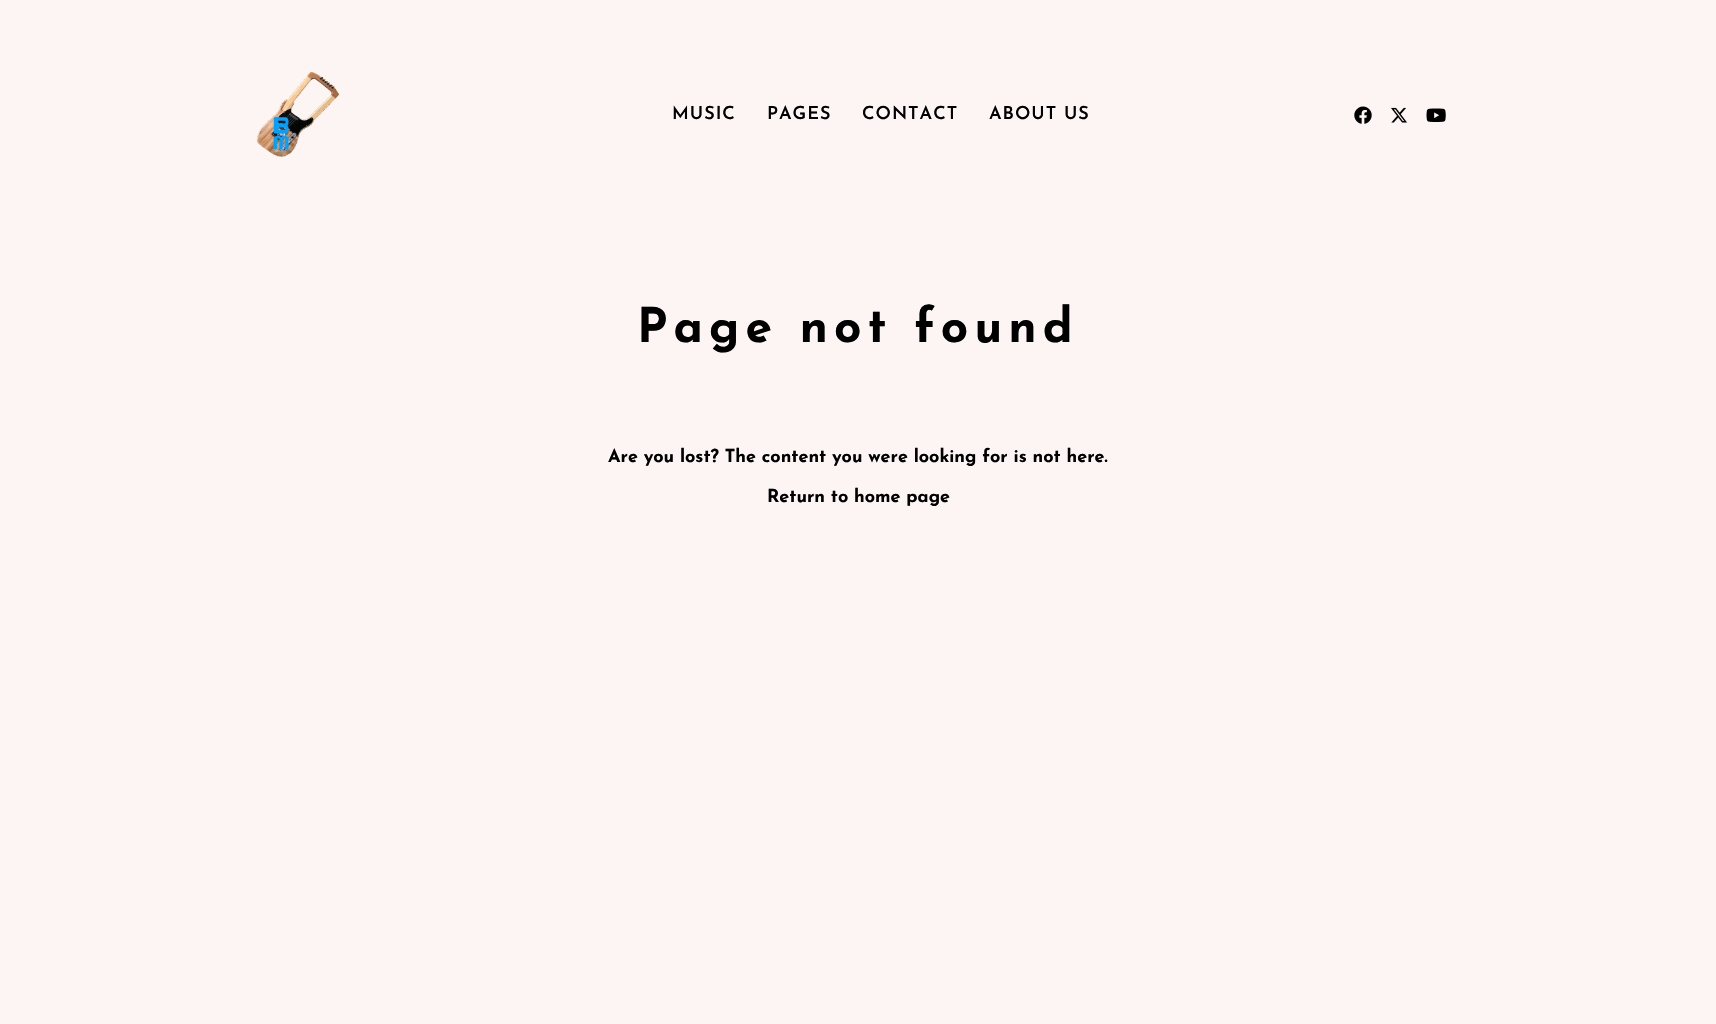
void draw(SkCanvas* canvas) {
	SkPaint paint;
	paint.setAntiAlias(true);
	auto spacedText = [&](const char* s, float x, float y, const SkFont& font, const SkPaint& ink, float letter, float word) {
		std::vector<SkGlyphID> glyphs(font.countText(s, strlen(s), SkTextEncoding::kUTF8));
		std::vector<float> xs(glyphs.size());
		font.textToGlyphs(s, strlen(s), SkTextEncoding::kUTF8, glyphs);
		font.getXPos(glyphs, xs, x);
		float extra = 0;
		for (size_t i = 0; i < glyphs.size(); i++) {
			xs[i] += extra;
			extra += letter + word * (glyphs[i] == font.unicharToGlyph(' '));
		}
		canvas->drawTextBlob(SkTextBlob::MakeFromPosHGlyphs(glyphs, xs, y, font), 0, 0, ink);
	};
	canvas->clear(0xfffdf4f4);
	canvas->drawImageRect(SkImages::DeferredFromEncodedData(SkData::MakeFromFileName("img1.png")), SkRect::MakeXYWH(256, 71, 84, 86), SkSamplingOptions());
	SkFont f1(fontMgr->matchFamilyStyle("Josefin Sans", SkFontStyle(600, SkFontStyle::kNormal_Width, SkFontStyle::kUpright_Slant)), 18);
	f1.setSubpixel(true);
	paint.setColor(0xff000000);
	spacedText("MUSIC", 672, 119, f1, paint, 1, 0);
	spacedText("PAGES", 767, 119, f1, paint, 1, 0);
	spacedText("CONTACT", 862, 119, f1, paint, 1, 0);
	spacedText("ABOUT US", 989, 119, f1, paint, 1, 0);
	canvas->drawImageRect(SkImages::DeferredFromEncodedData(SkData::MakeFromFileName("img2.png")), SkRect::MakeXYWH(1354, 106, 18, 18), SkSamplingOptions());
	canvas->drawImageRect(SkImages::DeferredFromEncodedData(SkData::MakeFromFileName("img3.png")), SkRect::MakeXYWH(1391, 107, 16, 16), SkSamplingOptions());
	canvas->drawImageRect(SkImages::DeferredFromEncodedData(SkData::MakeFromFileName("img4.png")), SkRect::MakeXYWH(1426, 108, 20, 14), SkSamplingOptions());
	SkFont f2(fontMgr->matchFamilyStyle("Josefin Sans", SkFontStyle::Bold()), 48);
	f2.setSubpixel(true);
	spacedText("Page not found", 637, 342, f2, paint, 6, 0);
	SkFont f3(fontMgr->matchFamilyStyle("Josefin Sans", SkFontStyle::Bold()), 18);
	f3.setSubpixel(true);
	canvas->drawString("Are you lost? The content you were looking for is not here.", 608, 462, f3, paint);
	canvas->drawString("Return to home page", 767, 502, f3, paint);
}
